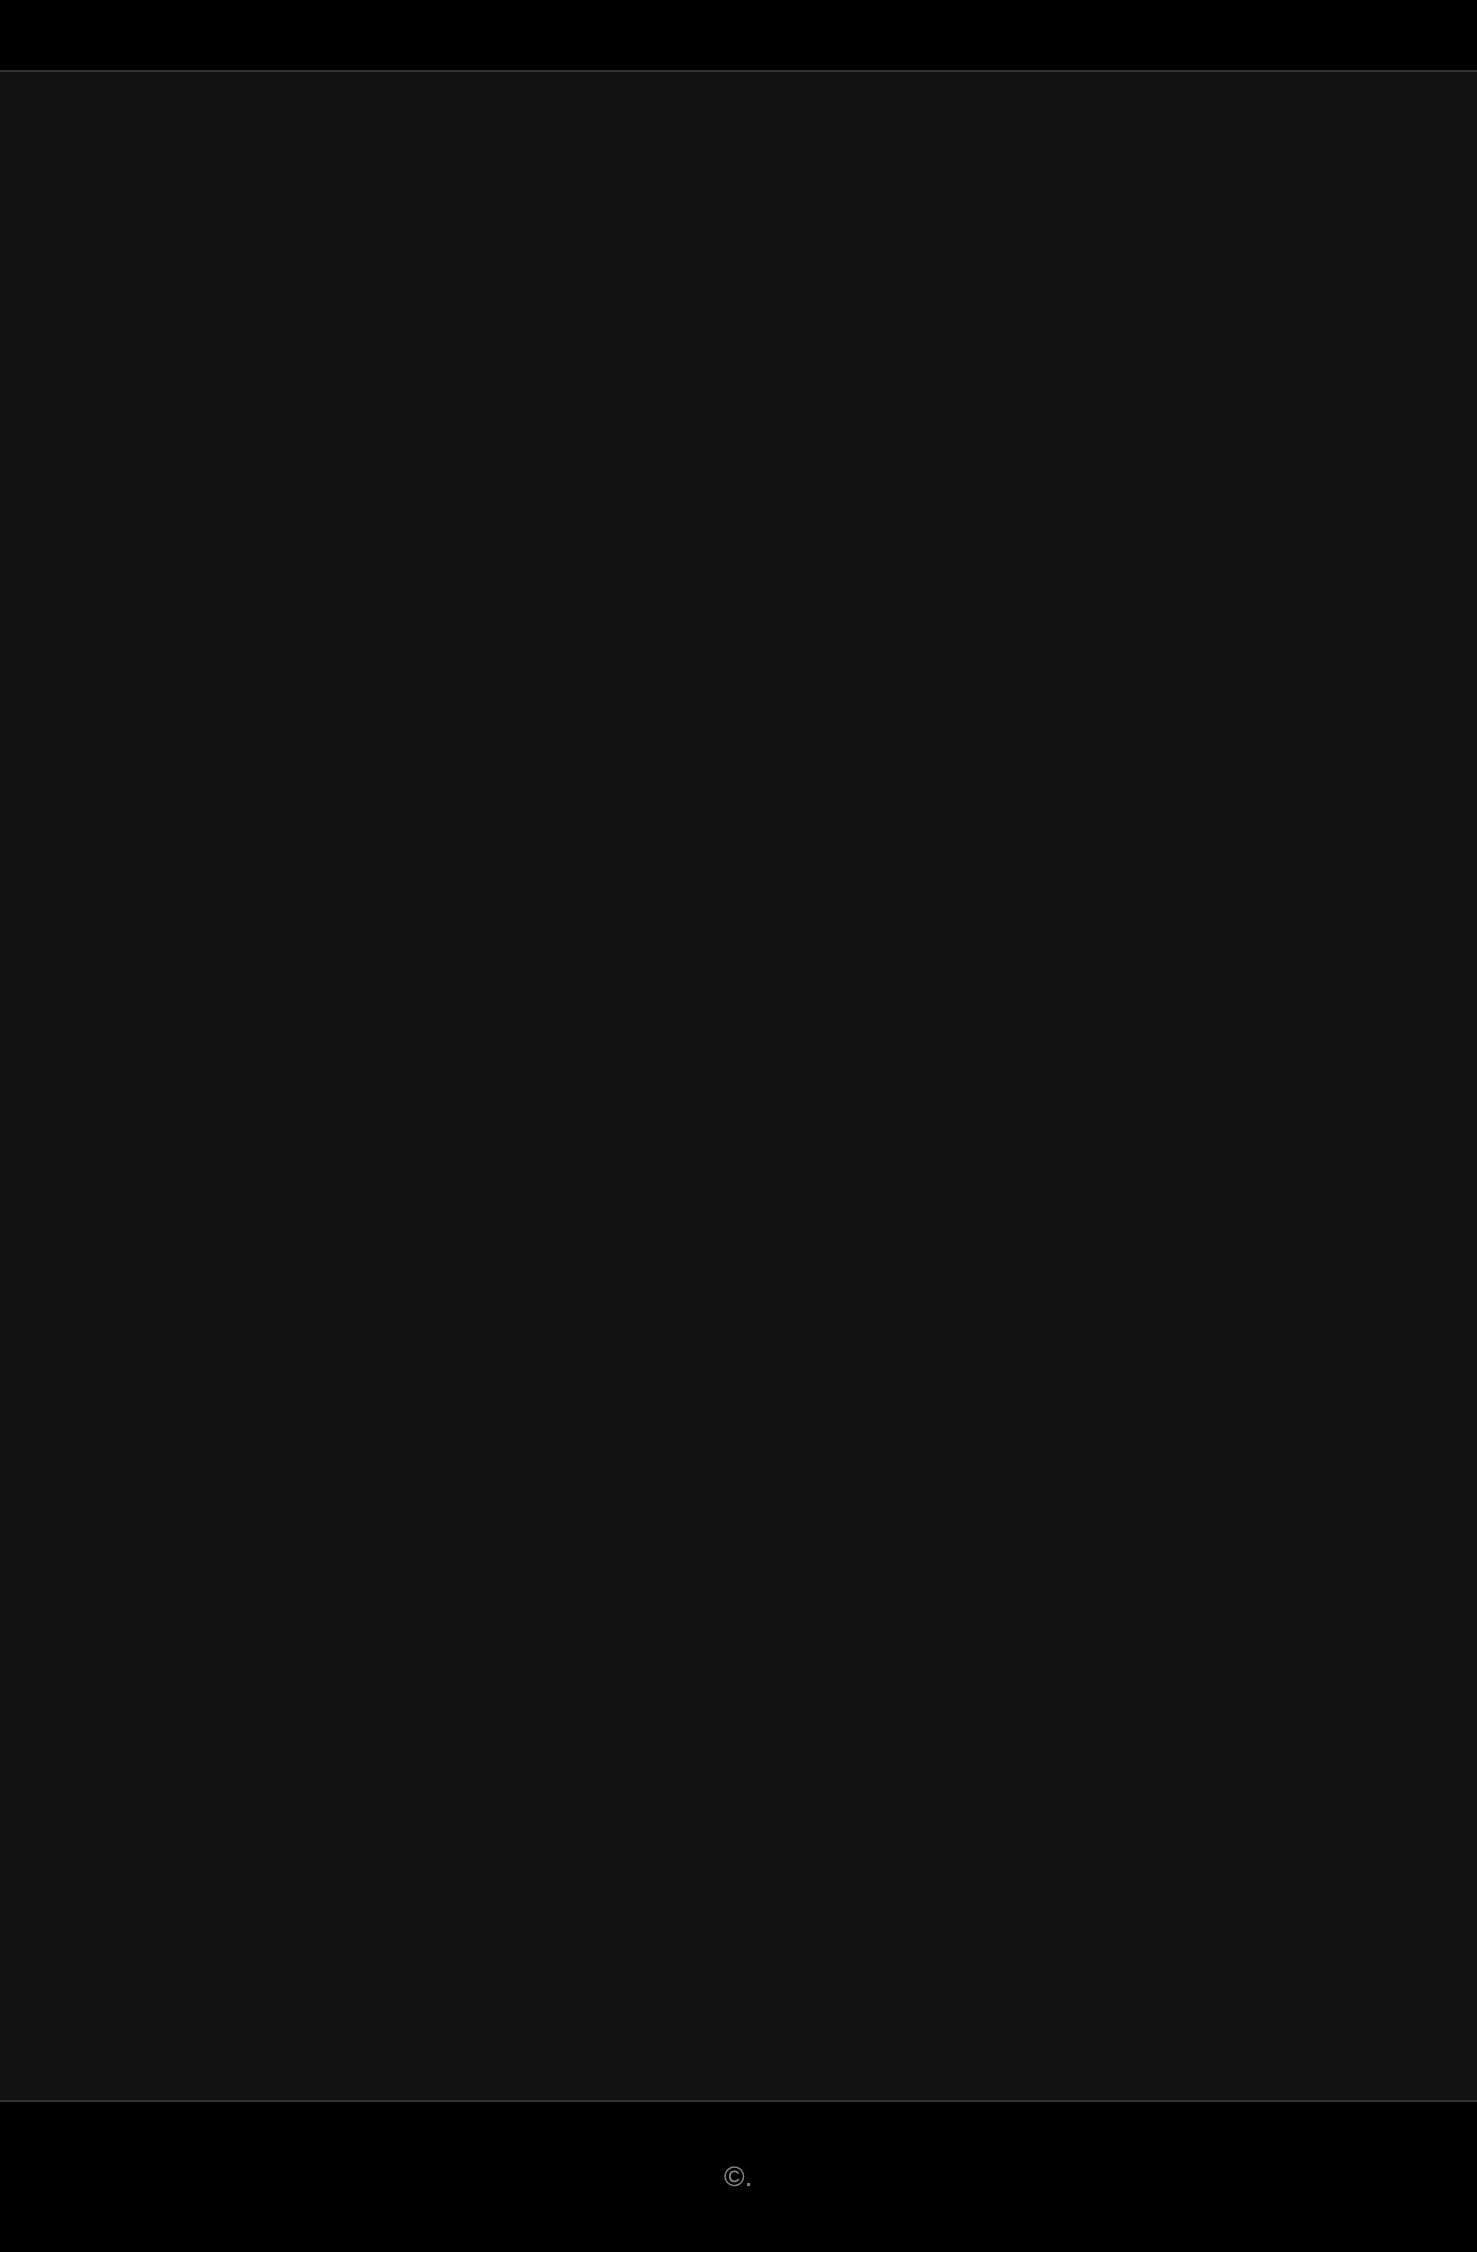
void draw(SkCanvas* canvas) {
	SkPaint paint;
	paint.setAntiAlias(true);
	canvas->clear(0xff121212);
	paint.setColor(0xff000000);
	canvas->drawRect(SkRect::MakeXYWH(0, 0, 1477, 70), paint);
	paint.setColor(0xff333333);
	canvas->drawRect(SkRect::MakeXYWH(0, 70, 1477, 2), paint);
	paint.setColor(0xff000000);
	canvas->drawRect(SkRect::MakeXYWH(0, 2102, 1477, 150), paint);
	paint.setColor(0xff333333);
	canvas->drawRect(SkRect::MakeXYWH(0, 2100, 1477, 2), paint);
	SkFont f1(fontMgr->matchFamilyStyle("Liberation Sans", SkFontStyle::Normal()), 28);
	f1.setSubpixel(true);
	paint.setColor(0xff888888);
	canvas->drawString("©.", 724, 2186, f1, paint);
}
